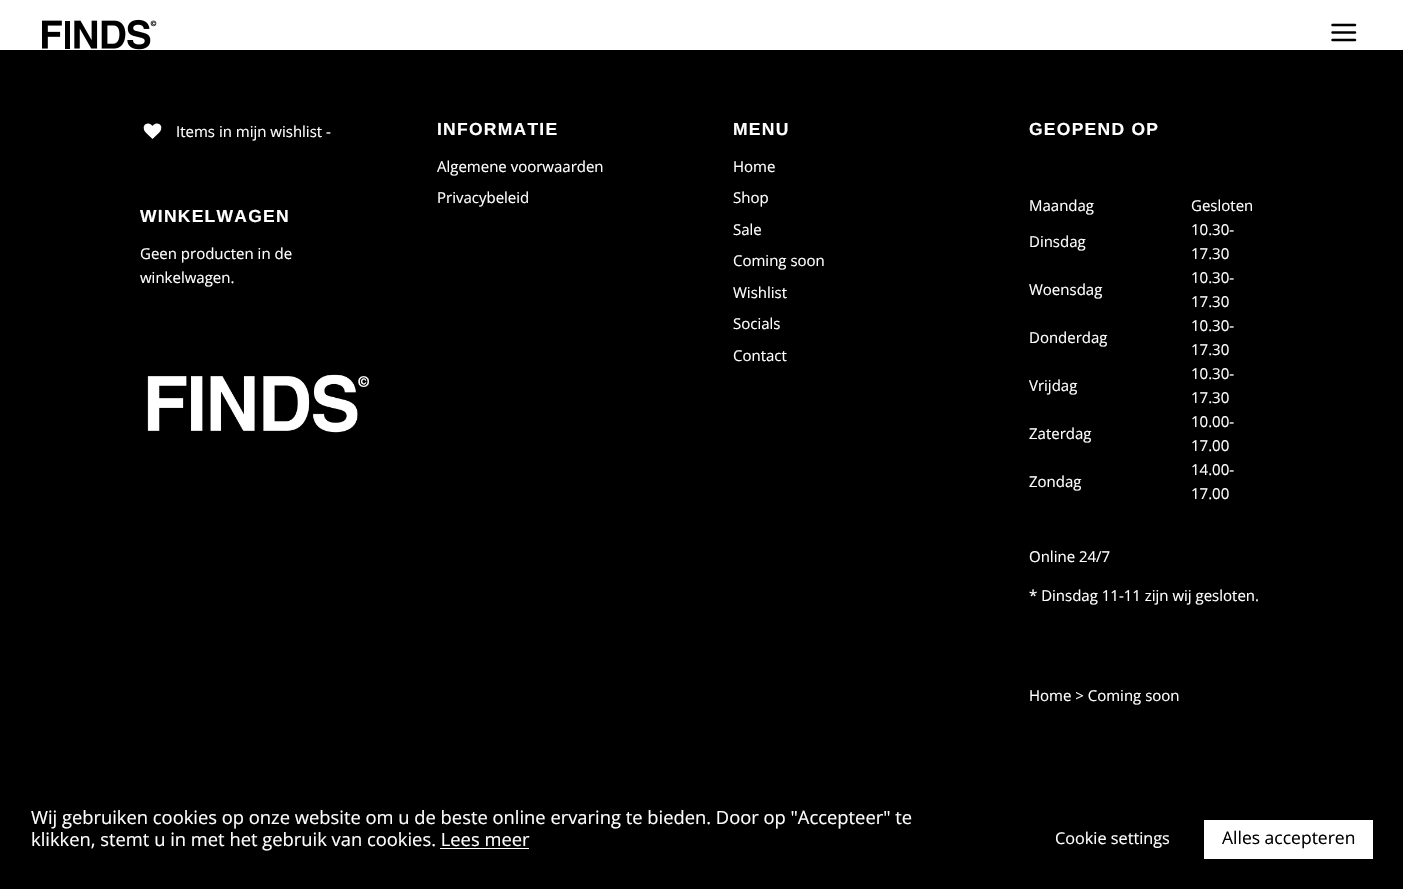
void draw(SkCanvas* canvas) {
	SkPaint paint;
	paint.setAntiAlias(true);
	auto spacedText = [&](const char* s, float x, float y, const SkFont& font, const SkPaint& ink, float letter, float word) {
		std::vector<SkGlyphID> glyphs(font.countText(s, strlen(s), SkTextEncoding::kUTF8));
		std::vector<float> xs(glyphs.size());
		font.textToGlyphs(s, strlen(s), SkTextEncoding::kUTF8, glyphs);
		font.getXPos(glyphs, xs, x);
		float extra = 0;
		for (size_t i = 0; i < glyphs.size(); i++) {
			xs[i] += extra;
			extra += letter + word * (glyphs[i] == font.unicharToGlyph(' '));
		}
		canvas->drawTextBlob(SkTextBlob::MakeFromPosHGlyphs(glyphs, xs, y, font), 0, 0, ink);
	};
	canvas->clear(0xffffffff);
	canvas->drawImageRect(SkImages::DeferredFromEncodedData(SkData::MakeFromFileName("img1.png")), SkRect::MakeXYWH(42, 19, 115, 31), SkSamplingOptions());
	canvas->drawImageRect(SkImages::DeferredFromEncodedData(SkData::MakeFromFileName("img2.png")), SkRect::MakeXYWH(1331, 23, 26, 19), SkSamplingOptions());
	paint.setColor(0xff000000);
	canvas->drawRect(SkRect::MakeXYWH(0, 50, 1403, 839), paint);
	canvas->drawImageRect(SkImages::DeferredFromEncodedData(SkData::MakeFromFileName("img3.png")), SkRect::MakeXYWH(143, 123, 19, 16), SkSamplingOptions());
	SkFont f1(fontMgr->matchFamilyStyle("Open Sans", SkFontStyle::Normal()), 15);
	f1.setSubpixel(true);
	paint.setColor(0xffffffff);
	canvas->drawString("Items in mijn wishlist -", 176, 137, f1, paint);
	SkFont f2(fontMgr->matchFamilyStyle("Liberation Sans", SkFontStyle::Bold()), 17.5);
	f2.setSubpixel(true);
	spacedText("WINKELWAGEN", 140, 222, f2, paint, 1.25, 0);
	canvas->drawString("Geen producten in de", 140, 259, f1, paint);
	canvas->drawString("winkelwagen.", 140, 283, f1, paint);
	canvas->drawImageRect(SkImages::DeferredFromEncodedData(SkData::MakeFromFileName("img4.png")), SkRect::MakeXYWH(147, 374, 222, 59), SkSamplingOptions());
	spacedText("INFORMATIE", 437, 135, f2, paint, 1.25, 0);
	canvas->drawString("Algemene voorwaarden", 437, 172, f1, paint);
	canvas->drawString("Privacybeleid", 437, 203, f1, paint);
	spacedText("MENU", 733, 135, f2, paint, 1.25, 0);
	canvas->drawString("Home", 733, 172, f1, paint);
	canvas->drawString("Shop", 733, 203, f1, paint);
	canvas->drawString("Sale", 733, 235, f1, paint);
	canvas->drawString("Coming soon", 733, 266, f1, paint);
	canvas->drawString("Wishlist", 733, 298, f1, paint);
	canvas->drawString("Socials", 733, 329, f1, paint);
	canvas->drawString("Contact", 733, 361, f1, paint);
	spacedText("GEOPEND OP", 1029, 135, f2, paint, 1.25, 0);
	canvas->drawString("Maandag", 1029, 211, f1, paint);
	canvas->drawString("Gesloten", 1191, 211, f1, paint);
	canvas->drawString("Dinsdag", 1029, 247, f1, paint);
	canvas->drawString("10.30-", 1191, 235, f1, paint);
	canvas->drawString("17.30", 1191, 259, f1, paint);
	canvas->drawString("Woensdag", 1029, 295, f1, paint);
	canvas->drawString("10.30-", 1191, 283, f1, paint);
	canvas->drawString("17.30", 1191, 307, f1, paint);
	canvas->drawString("Donderdag", 1029, 343, f1, paint);
	canvas->drawString("10.30-", 1191, 331, f1, paint);
	canvas->drawString("17.30", 1191, 355, f1, paint);
	canvas->drawString("Vrijdag", 1029, 391, f1, paint);
	canvas->drawString("10.30-", 1191, 379, f1, paint);
	canvas->drawString("17.30", 1191, 403, f1, paint);
	canvas->drawString("Zaterdag", 1029, 439, f1, paint);
	canvas->drawString("10.00-", 1191, 427, f1, paint);
	canvas->drawString("17.00", 1191, 451, f1, paint);
	canvas->drawString("Zondag", 1029, 487, f1, paint);
	canvas->drawString("14.00-", 1191, 475, f1, paint);
	canvas->drawString("17.00", 1191, 499, f1, paint);
	canvas->drawString("Online 24/7", 1029, 562, f1, paint);
	canvas->drawString("* Dinsdag 11-11 zijn wij gesloten.", 1029, 601, f1, paint);
	canvas->drawString("Home > Coming soon", 1029, 701, f1, paint);
	SkFont f3(fontMgr->matchFamilyStyle("Open Sans", SkFontStyle::Normal()), 18.35);
	f3.setSubpixel(true);
	canvas->drawString("Wij gebruiken cookies op onze website om u de beste online ervaring te bieden. Door op \"Accepteer\" te", 31, 824, f3, paint);
	canvas->drawString("klikken, stemt u in met het gebruik van cookies. Lees meer", 31, 846, f3, paint);
	canvas->drawRect(SkRect::MakeXYWH(440, 848, 89, 1), paint);
	SkFont f4(fontMgr->matchFamilyStyle("Open Sans", SkFontStyle::Normal()), 16.25);
	f4.setSubpixel(true);
	canvas->drawString("Cookie settings", 1055, 844, f4, paint);
	canvas->drawRect(SkRect::MakeXYWH(1204, 820, 169, 39), paint);
	SkFont f5(fontMgr->matchFamilyStyle("Open Sans", SkFontStyle::Normal()), 17.5);
	f5.setSubpixel(true);
	paint.setColor(0xff000000);
	canvas->drawString("Alles accepteren", 1222, 844, f5, paint);
}
